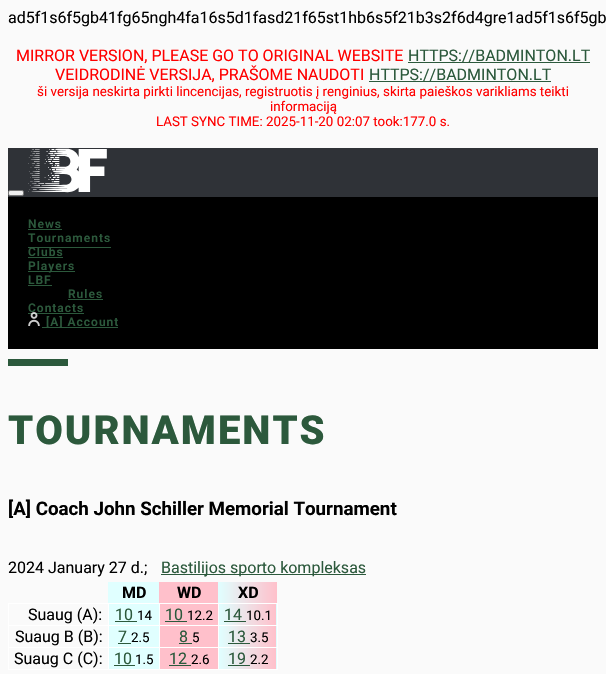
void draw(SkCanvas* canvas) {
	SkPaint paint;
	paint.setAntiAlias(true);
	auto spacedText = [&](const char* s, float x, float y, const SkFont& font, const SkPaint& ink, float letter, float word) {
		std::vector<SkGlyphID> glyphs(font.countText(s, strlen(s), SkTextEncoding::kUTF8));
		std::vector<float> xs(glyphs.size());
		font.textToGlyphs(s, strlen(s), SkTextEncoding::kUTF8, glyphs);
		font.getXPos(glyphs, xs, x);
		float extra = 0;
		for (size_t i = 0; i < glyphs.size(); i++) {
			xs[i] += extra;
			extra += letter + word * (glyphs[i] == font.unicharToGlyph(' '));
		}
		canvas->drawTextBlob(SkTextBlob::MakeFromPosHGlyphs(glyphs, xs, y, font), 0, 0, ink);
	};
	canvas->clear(0xfffafafa);
	SkFont f1(fontMgr->matchFamilyStyle("Roboto", SkFontStyle::Normal()), 16);
	f1.setSubpixel(true);
	paint.setColor(0xff000000);
	canvas->drawString("ad5f1s6f5gb41fg65ngh4fa16s5d1fasd21f65st1hb6s5f21b3s2f6d4gre1ad5f1s6f5gb", 8, 23, f1, paint);
	paint.setColor(0xffff0000);
	canvas->drawString("MIRROR VERSION, PLEASE GO TO ORIGINAL WEBSITE", 16, 61, f1, paint);
	paint.setColor(0xff2c593c);
	canvas->drawString("HTTPS://BADMINTON.LT", 408, 61, f1, paint);
	canvas->drawRect(SkRect::MakeXYWH(408, 62, 182, 1), paint);
	paint.setColor(0xffff0000);
	canvas->drawString("VEIDRODINĖ VERSIJA, PRAŠOME NAUDOTI", 55, 80, f1, paint);
	paint.setColor(0xff2c593c);
	canvas->drawString("HTTPS://BADMINTON.LT", 369, 80, f1, paint);
	canvas->drawRect(SkRect::MakeXYWH(369, 81, 182, 1), paint);
	SkFont f2(fontMgr->matchFamilyStyle("Roboto", SkFontStyle::Normal()), 13.35);
	f2.setSubpixel(true);
	paint.setColor(0xffff0000);
	canvas->drawString("ši versija neskirta pirkti lincencijas, registruotis į renginius, skirta paieškos varikliams teikti", 37, 96, f2, paint);
	canvas->drawString("informaciją", 270, 111, f2, paint);
	canvas->drawString("LAST SYNC TIME: 2025-11-20 02:07 took:177.0 s.", 156, 126, f2, paint);
	paint.setColor(0xff2f3237);
	canvas->drawRect(SkRect::MakeXYWH(8, 148, 590, 49), paint);
	paint.setColor(0xffefefef);
	canvas->drawRoundRect(SkRect::MakeXYWH(8.5, 190.5, 15, 5), 1.5, 1.5, paint);
	paint.setStroke(true);
	paint.setStrokeWidth(1);
	paint.setColor(0xff767676);
	canvas->drawRoundRect(SkRect::MakeXYWH(8.5, 190.5, 15, 5), 1.5, 1.5, paint);
	canvas->drawImageRect(SkImages::DeferredFromEncodedData(SkData::MakeFromFileName("img1.png")), SkRect::MakeXYWH(28, 148, 79, 45), SkSamplingOptions());
	paint.setStroke(false);
	paint.setColor(0xff000000);
	canvas->drawRect(SkRect::MakeXYWH(8, 197, 590, 152), paint);
	SkFont f3(fontMgr->matchFamilyStyle("Roboto", SkFontStyle(600, SkFontStyle::kNormal_Width, SkFontStyle::kUpright_Slant)), 12);
	f3.setSubpixel(true);
	paint.setColor(0xff2c593c);
	spacedText("News", 28, 228, f3, paint, 1, 0);
	canvas->drawRect(SkRect::MakeXYWH(28, 229, 34, 1), paint);
	spacedText("Tournaments", 28, 242, f3, paint, 1, 0);
	canvas->drawRect(SkRect::MakeXYWH(28, 247, 83, 1), paint);
	spacedText("Clubs", 28, 256, f3, paint, 1, 0);
	canvas->drawRect(SkRect::MakeXYWH(28, 257, 35, 1), paint);
	canvas->drawRect(SkRect::MakeXYWH(28, 271, 47, 1), paint);
	spacedText("Players", 28, 270, f3, paint, 1, 0);
	spacedText("LBF", 28, 284, f3, paint, 1, 0);
	canvas->drawRect(SkRect::MakeXYWH(28, 285, 24, 1), paint);
	spacedText("Rules", 68, 298, f3, paint, 1, 0);
	canvas->drawRect(SkRect::MakeXYWH(68, 299, 35, 1), paint);
	spacedText("Contacts", 28, 312, f3, paint, 1, 0);
	canvas->drawRect(SkRect::MakeXYWH(28, 313, 56, 1), paint);
	canvas->drawImageRect(SkImages::DeferredFromEncodedData(SkData::MakeFromFileName("img2.png")), SkRect::MakeXYWH(28, 312, 12, 14), SkSamplingOptions());
	canvas->drawRect(SkRect::MakeXYWH(42, 327, 76, 1), paint);
	spacedText("[A] Account", 46, 326, f3, paint, 1, 0);
	canvas->drawRect(SkRect::MakeXYWH(8, 359, 60, 7), paint);
	SkFont f4(fontMgr->matchFamilyStyle("Roboto", SkFontStyle(900, SkFontStyle::kNormal_Width, SkFontStyle::kUpright_Slant)), 40);
	f4.setSubpixel(true);
	spacedText("TOURNAMENTS", 8, 444, f4, paint, 2, 0);
	SkFont f5(fontMgr->matchFamilyStyle("Roboto", SkFontStyle::Bold()), 18.75);
	f5.setSubpixel(true);
	paint.setColor(0xff000000);
	canvas->drawString("[A] Coach John Schiller Memorial Tournament", 8, 515, f5, paint);
	canvas->drawString("2024 January 27 d.;", 8, 573, f1, paint);
	paint.setColor(0xff2c593c);
	canvas->drawRect(SkRect::MakeXYWH(161, 574, 205, 1), paint);
	canvas->drawString("Bastilijos sporto kompleksas", 161, 573, f1, paint);
	paint.setColor(0xffe0ffff);
	canvas->drawRect(SkRect::MakeXYWH(108, 582, 51, 21), paint);
	SkFont f6(fontMgr->matchFamilyStyle("Roboto", SkFontStyle::Bold()), 16);
	f6.setSubpixel(true);
	paint.setColor(0xff000000);
	canvas->drawString("MD", 122, 598, f6, paint);
	paint.setColor(0xffffc0cb);
	canvas->drawRect(SkRect::MakeXYWH(159, 582, 59, 21), paint);
	paint.setColor(0xff000000);
	canvas->drawString("WD", 177, 598, f6, paint);
	{
		const SkColor colors[] = {0xffe0ffff, 0xffffc0cb};
		const float stops[] = {0, 1};
		const SkPoint ends[] = {{218, 593}, {277, 593}};
		paint.setShader(SkGradientShader::MakeLinear(ends, colors, stops, 2, SkTileMode::kClamp));
		paint.setAlpha(255);
	}
	canvas->drawRect(SkRect::MakeXYWH(218, 582, 59, 21), paint);
	paint.setShader(nullptr);
	paint.setColor(0xff000000);
	canvas->drawString("XD", 238, 598, f6, paint);
	{
		const SkColor colors[] = {0xffe0ffff, 0xffffc0cb};
		const float stops[] = {0, 1};
		const SkPoint ends[] = {{276, 614}, {333, 614}};
		paint.setShader(SkGradientShader::MakeLinear(ends, colors, stops, 2, SkTileMode::kClamp));
		paint.setAlpha(255);
	}
	canvas->drawRect(SkRect::MakeXYWH(276, 603, 1, 22), paint);
	paint.setShader(nullptr);
	paint.setColor(0xffffffff);
	canvas->drawRect(SkRect::MakeXYWH(218, 603, 60, 1), paint);
	{
		const SkColor colors[] = {0xffe0ffff, 0xffffc0cb};
		const float stops[] = {0, 1};
		const SkPoint ends[] = {{276, 636}, {333, 636}};
		paint.setShader(SkGradientShader::MakeLinear(ends, colors, stops, 2, SkTileMode::kClamp));
		paint.setAlpha(255);
	}
	canvas->drawRect(SkRect::MakeXYWH(276, 625, 1, 22), paint);
	paint.setShader(nullptr);
	paint.setColor(0xffffffff);
	canvas->drawRect(SkRect::MakeXYWH(218, 625, 60, 1), paint);
	{
		const SkColor colors[] = {0xffe0ffff, 0xffffc0cb};
		const float stops[] = {0, 1};
		const SkPoint ends[] = {{276, 658}, {333, 658}};
		paint.setShader(SkGradientShader::MakeLinear(ends, colors, stops, 2, SkTileMode::kClamp));
		paint.setAlpha(255);
	}
	canvas->drawRect(SkRect::MakeXYWH(276, 647, 1, 22), paint);
	paint.setShader(nullptr);
	paint.setColor(0xffffffff);
	canvas->drawRect(SkRect::MakeXYWH(218, 647, 60, 1), paint);
	canvas->drawRect(SkRect::MakeXYWH(277, 647, 1, 23), paint);
	canvas->drawRect(SkRect::MakeXYWH(218, 669, 60, 1), paint);
	canvas->drawRect(SkRect::MakeXYWH(218, 647, 1, 23), paint);
	canvas->drawRect(SkRect::MakeXYWH(159, 647, 60, 1), paint);
	canvas->drawRect(SkRect::MakeXYWH(218, 625, 1, 23), paint);
	canvas->drawRect(SkRect::MakeXYWH(159, 625, 60, 1), paint);
	canvas->drawRect(SkRect::MakeXYWH(218, 603, 1, 23), paint);
	canvas->drawRect(SkRect::MakeXYWH(159, 603, 60, 1), paint);
	canvas->drawRect(SkRect::MakeXYWH(159, 669, 60, 1), paint);
	canvas->drawRect(SkRect::MakeXYWH(159, 647, 1, 23), paint);
	canvas->drawRect(SkRect::MakeXYWH(108, 647, 52, 1), paint);
	canvas->drawRect(SkRect::MakeXYWH(159, 625, 1, 23), paint);
	canvas->drawRect(SkRect::MakeXYWH(108, 625, 52, 1), paint);
	canvas->drawRect(SkRect::MakeXYWH(159, 603, 1, 23), paint);
	canvas->drawRect(SkRect::MakeXYWH(108, 603, 52, 1), paint);
	canvas->drawRect(SkRect::MakeXYWH(108, 669, 52, 1), paint);
	canvas->drawRect(SkRect::MakeXYWH(108, 647, 1, 23), paint);
	canvas->drawRect(SkRect::MakeXYWH(8, 647, 101, 1), paint);
	canvas->drawRect(SkRect::MakeXYWH(108, 625, 1, 23), paint);
	canvas->drawRect(SkRect::MakeXYWH(8, 625, 101, 1), paint);
	canvas->drawRect(SkRect::MakeXYWH(108, 603, 1, 23), paint);
	canvas->drawRect(SkRect::MakeXYWH(8, 603, 101, 1), paint);
	canvas->drawRect(SkRect::MakeXYWH(8, 669, 101, 1), paint);
	canvas->drawRect(SkRect::MakeXYWH(8, 647, 1, 23), paint);
	canvas->drawRect(SkRect::MakeXYWH(8, 625, 1, 23), paint);
	canvas->drawRect(SkRect::MakeXYWH(8, 603, 1, 23), paint);
	paint.setColor(0xff000000);
	canvas->drawString("Suaug (A):", 28, 620, f1, paint);
	paint.setColor(0xffe0ffff);
	canvas->drawRect(SkRect::MakeXYWH(109, 604, 50, 21), paint);
	paint.setColor(0xff2c593c);
	canvas->drawString("10", 115, 620, f1, paint);
	canvas->drawRect(SkRect::MakeXYWH(115, 621, 22, 1), paint);
	paint.setColor(0xff000000);
	canvas->drawString("14", 137, 620, f2, paint);
	paint.setColor(0xffffc0cb);
	canvas->drawRect(SkRect::MakeXYWH(160, 604, 58, 21), paint);
	paint.setColor(0xff2c593c);
	canvas->drawString("10", 165, 620, f1, paint);
	canvas->drawRect(SkRect::MakeXYWH(165, 621, 22, 1), paint);
	paint.setColor(0xff000000);
	canvas->drawString("12.2", 187, 620, f2, paint);
	{
		const SkColor colors[] = {0xffe0ffff, 0xffffc0cb};
		const float stops[] = {0, 1};
		const SkPoint ends[] = {{219, 614}, {276, 614}};
		paint.setShader(SkGradientShader::MakeLinear(ends, colors, stops, 2, SkTileMode::kClamp));
		paint.setAlpha(255);
	}
	canvas->drawRect(SkRect::MakeXYWH(219, 604, 57, 21), paint);
	paint.setShader(nullptr);
	paint.setColor(0xffffffff);
	canvas->drawRect(SkRect::MakeXYWH(277, 625, 1, 23), paint);
	canvas->drawRect(SkRect::MakeXYWH(277, 603, 1, 23), paint);
	paint.setColor(0xff2c593c);
	canvas->drawString("14", 224, 620, f1, paint);
	canvas->drawRect(SkRect::MakeXYWH(224, 621, 22, 1), paint);
	paint.setColor(0xff000000);
	canvas->drawString("10.1", 246, 620, f2, paint);
	canvas->drawString("Suaug B (B):", 15, 642, f1, paint);
	paint.setColor(0xffe0ffff);
	canvas->drawRect(SkRect::MakeXYWH(109, 626, 50, 21), paint);
	paint.setColor(0xff2c593c);
	canvas->drawString("7", 118, 642, f1, paint);
	canvas->drawRect(SkRect::MakeXYWH(118, 643, 13, 1), paint);
	paint.setColor(0xff000000);
	canvas->drawString("2.5", 131, 642, f2, paint);
	paint.setColor(0xffffc0cb);
	canvas->drawRect(SkRect::MakeXYWH(160, 626, 58, 21), paint);
	paint.setColor(0xff2c593c);
	canvas->drawString("8", 179, 642, f1, paint);
	canvas->drawRect(SkRect::MakeXYWH(179, 643, 13, 1), paint);
	paint.setColor(0xff000000);
	canvas->drawString("5", 192, 642, f2, paint);
	{
		const SkColor colors[] = {0xffe0ffff, 0xffffc0cb};
		const float stops[] = {0, 1};
		const SkPoint ends[] = {{219, 636}, {276, 636}};
		paint.setShader(SkGradientShader::MakeLinear(ends, colors, stops, 2, SkTileMode::kClamp));
		paint.setAlpha(255);
	}
	canvas->drawRect(SkRect::MakeXYWH(219, 626, 57, 21), paint);
	paint.setShader(nullptr);
	paint.setColor(0xff2c593c);
	canvas->drawString("13", 228, 642, f1, paint);
	canvas->drawRect(SkRect::MakeXYWH(228, 643, 22, 1), paint);
	paint.setColor(0xff000000);
	canvas->drawString("3.5", 250, 642, f2, paint);
	canvas->drawString("Suaug C (C):", 14, 664, f1, paint);
	paint.setColor(0xffe0ffff);
	canvas->drawRect(SkRect::MakeXYWH(109, 648, 50, 21), paint);
	paint.setColor(0xff2c593c);
	canvas->drawString("10", 114, 664, f1, paint);
	canvas->drawRect(SkRect::MakeXYWH(114, 665, 21, 1), paint);
	paint.setColor(0xff000000);
	canvas->drawString("1.5", 135, 664, f2, paint);
	paint.setColor(0xffffc0cb);
	canvas->drawRect(SkRect::MakeXYWH(160, 648, 58, 21), paint);
	paint.setColor(0xff2c593c);
	canvas->drawString("12", 169, 664, f1, paint);
	canvas->drawRect(SkRect::MakeXYWH(169, 665, 22, 1), paint);
	paint.setColor(0xff000000);
	canvas->drawString("2.6", 191, 664, f2, paint);
	{
		const SkColor colors[] = {0xffe0ffff, 0xffffc0cb};
		const float stops[] = {0, 1};
		const SkPoint ends[] = {{219, 658}, {276, 658}};
		paint.setShader(SkGradientShader::MakeLinear(ends, colors, stops, 2, SkTileMode::kClamp));
		paint.setAlpha(255);
	}
	canvas->drawRect(SkRect::MakeXYWH(219, 648, 57, 21), paint);
	paint.setShader(nullptr);
	paint.setColor(0xff2c593c);
	canvas->drawString("19", 228, 664, f1, paint);
	canvas->drawRect(SkRect::MakeXYWH(228, 665, 22, 1), paint);
	paint.setColor(0xff000000);
	canvas->drawString("2.2", 250, 664, f2, paint);
}
